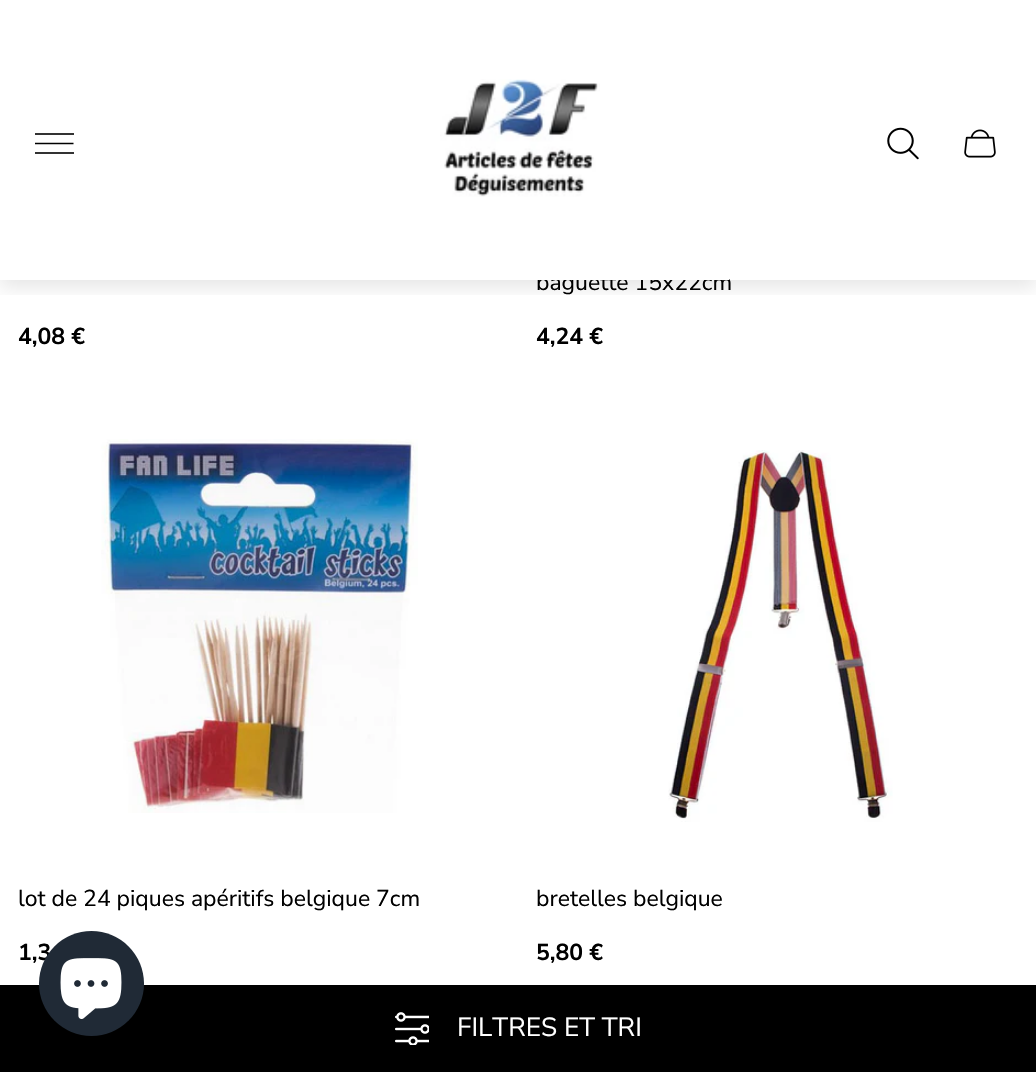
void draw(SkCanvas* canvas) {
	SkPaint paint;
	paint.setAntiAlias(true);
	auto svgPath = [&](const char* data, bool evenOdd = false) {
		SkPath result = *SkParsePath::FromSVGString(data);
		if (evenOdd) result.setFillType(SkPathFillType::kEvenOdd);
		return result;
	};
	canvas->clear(0xffffffff);
	SkFont f1(fontMgr->matchFamilyStyle("Nunito Sans", SkFontStyle::Normal()), 23);
	f1.setSubpixel(true);
	paint.setColor(0xff000000);
	canvas->drawString("baguette 15x22cm", 536, 290, f1, paint);
	paint.setColor(0xffffffff);
	canvas->drawRect(SkRect::MakeXYWH(537, 273, 192, 7), paint);
	canvas->save();
	canvas->clipRect(SkRect::MakeXYWH(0, 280, 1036, 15));
	paint.setColor(0x1a000000);
	paint.setMaskFilter(SkMaskFilter::MakeBlur(kNormal_SkBlurStyle, 9.5));
	canvas->drawRect(SkRect::MakeXYWH(0, 7, 1036, 280), paint);
	paint.setMaskFilter(nullptr);
	canvas->restore();
	paint.setColor(0xff333333);
	canvas->drawRect(SkRect::MakeXYWH(35, 133, 39, 2), paint);
	paint.setStroke(true);
	paint.setStrokeWidth(1.6);
	paint.setColor(0xff000000);
	canvas->drawPath(svgPath("M35 143.5H73.5"), paint);
	paint.setStroke(false);
	paint.setColor(0xff333333);
	canvas->drawRect(SkRect::MakeXYWH(35, 152, 39, 2), paint);
	canvas->drawImageRect(SkImages::DeferredFromEncodedData(SkData::MakeFromFileName("img1.png")), SkRect::MakeXYWH(440, 79, 160, 118), SkSamplingOptions());
	canvas->drawImageRect(SkImages::DeferredFromEncodedData(SkData::MakeFromFileName("img2.png")), SkRect::MakeXYWH(887, 127, 32, 33), SkSamplingOptions());
	canvas->drawImageRect(SkImages::DeferredFromEncodedData(SkData::MakeFromFileName("img3.png")), SkRect::MakeXYWH(964, 129, 32, 29), SkSamplingOptions());
	SkFont f2(fontMgr->matchFamilyStyle("Nunito Sans", SkFontStyle::Bold()), 23);
	f2.setSubpixel(true);
	paint.setColor(0xff000000);
	canvas->drawString("4,08 €", 18, 344, f2, paint);
	canvas->drawString("4,24 €", 536, 344, f2, paint);
	canvas->drawImageRect(SkImages::DeferredFromEncodedData(SkData::MakeFromFileName("img4.png")), SkRect::MakeXYWH(101, 439, 317, 374), SkSamplingOptions());
	canvas->drawString("lot de 24 piques apéritifs belgique 7cm", 18, 906, f1, paint);
	canvas->drawString("1,3", 18, 960, f2, paint);
	canvas->drawImageRect(SkImages::DeferredFromEncodedData(SkData::MakeFromFileName("img5.png")), SkRect::MakeXYWH(668, 450, 225, 372), SkSamplingOptions());
	canvas->drawString("bretelles belgique", 536, 906, f1, paint);
	canvas->drawString("5,80 €", 536, 960, f2, paint);
	canvas->drawRect(SkRect::MakeXYWH(0, 985, 1036, 87), paint);
	canvas->drawImageRect(SkImages::DeferredFromEncodedData(SkData::MakeFromFileName("img6.png")), SkRect::MakeXYWH(395, 1012, 34, 33), SkSamplingOptions());
	SkFont f3(fontMgr->matchFamilyStyle("Nunito Sans", SkFontStyle::Normal()), 26.25);
	f3.setSubpixel(true);
	paint.setColor(0xffffffff);
	canvas->drawString("FILTRES ET TRI", 457, 1036, f3, paint);
	paint.setColor(0xff202a36);
	canvas->drawCircle(91.5, 983.5, 52.5, paint);
	canvas->drawImageRect(SkImages::DeferredFromEncodedData(SkData::MakeFromFileName("img7.png")), SkRect::MakeXYWH(60, 958, 62, 61), SkSamplingOptions());
}
